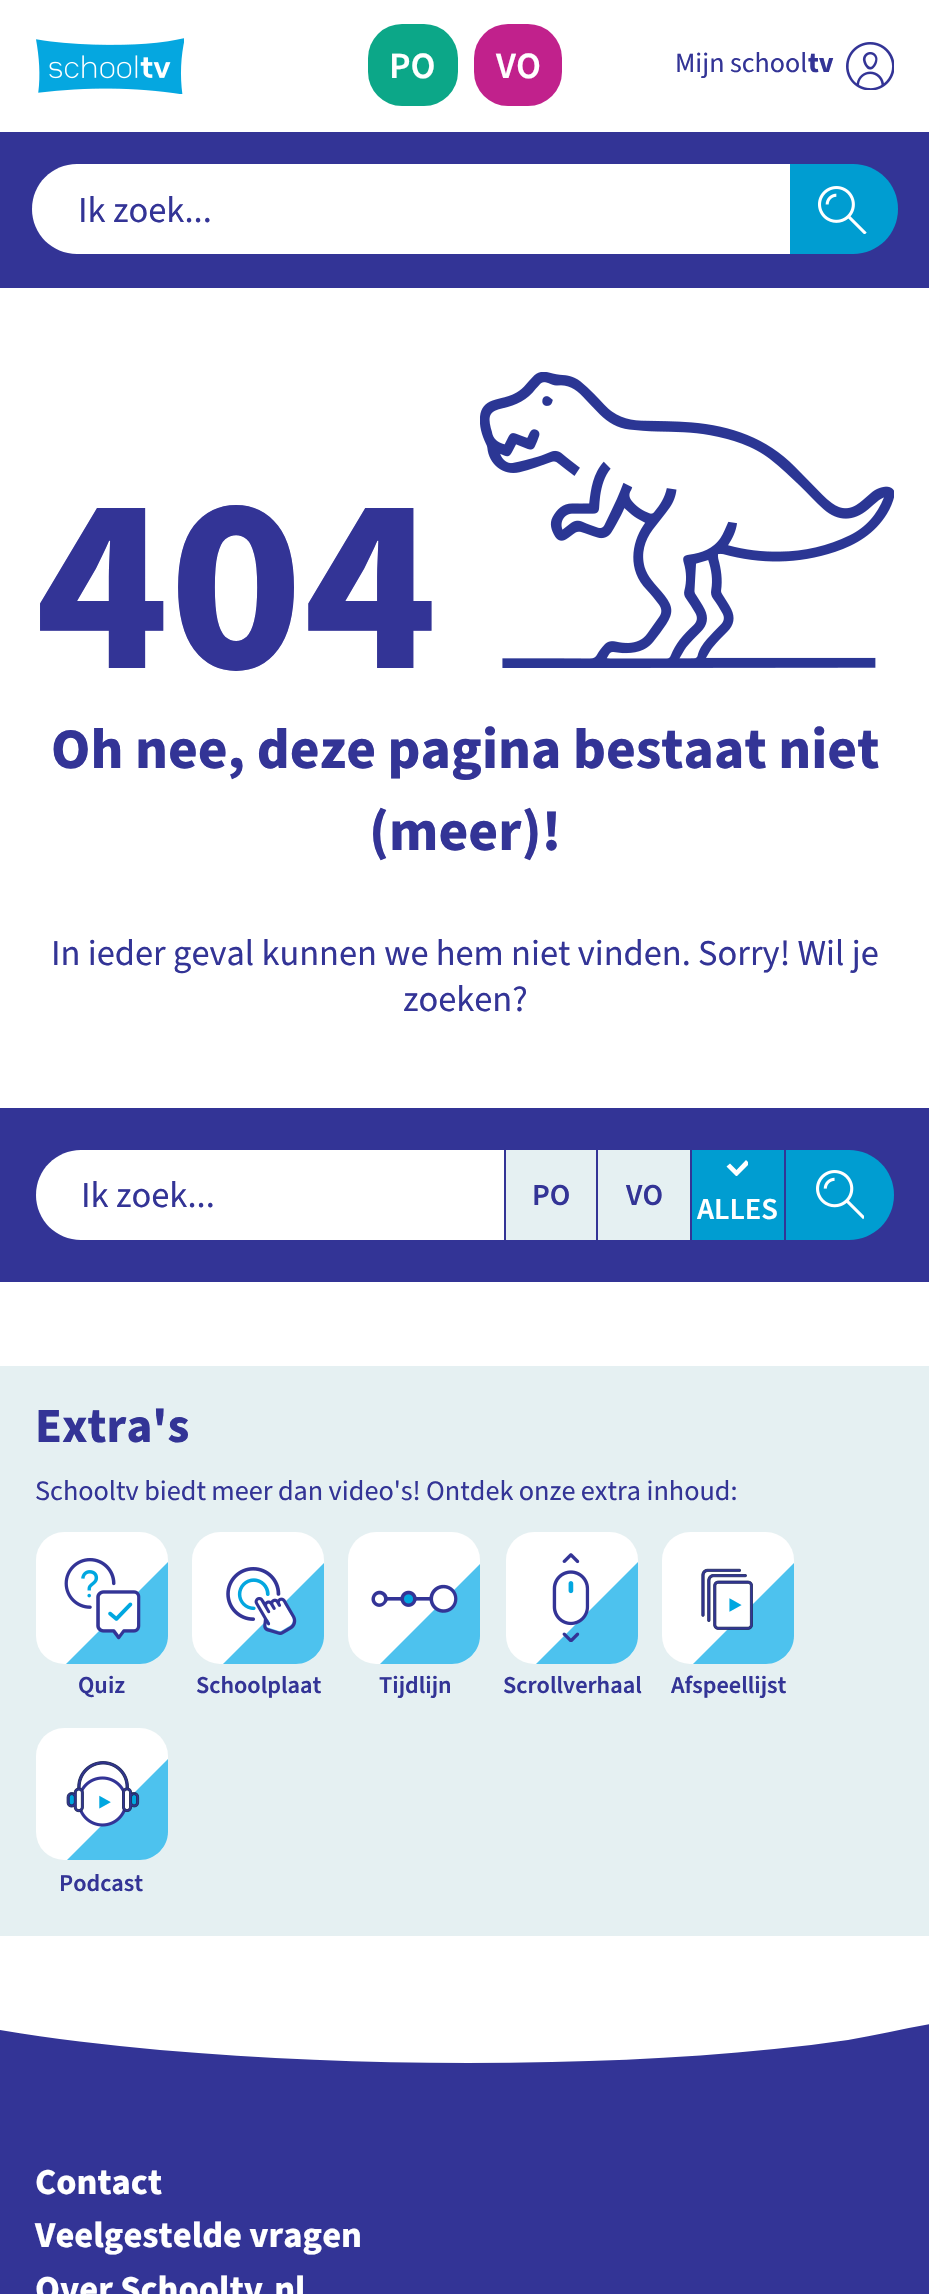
void draw(SkCanvas* canvas) {
	SkPaint paint;
	paint.setAntiAlias(true);
	auto spacedText = [&](const char* s, float x, float y, const SkFont& font, const SkPaint& ink, float letter, float word) {
		std::vector<SkGlyphID> glyphs(font.countText(s, strlen(s), SkTextEncoding::kUTF8));
		std::vector<float> xs(glyphs.size());
		font.textToGlyphs(s, strlen(s), SkTextEncoding::kUTF8, glyphs);
		font.getXPos(glyphs, xs, x);
		float extra = 0;
		for (size_t i = 0; i < glyphs.size(); i++) {
			xs[i] += extra;
			extra += letter + word * (glyphs[i] == font.unicharToGlyph(' '));
		}
		canvas->drawTextBlob(SkTextBlob::MakeFromPosHGlyphs(glyphs, xs, y, font), 0, 0, ink);
	};
	auto svgPath = [&](const char* data, bool evenOdd = false) {
		SkPath result = *SkParsePath::FromSVGString(data);
		if (evenOdd) result.setFillType(SkPathFillType::kEvenOdd);
		return result;
	};
	canvas->clear(0xffffffff);
	canvas->drawImageRect(SkImages::DeferredFromEncodedData(SkData::MakeFromFileName("img1.png")), SkRect::MakeXYWH(36, 38, 148, 56), SkSamplingOptions());
	paint.setColor(0xff0ca788);
	canvas->drawRoundRect(SkRect::MakeXYWH(368, 24, 90, 82), 34, 34, paint);
	SkFont f1(fontMgr->matchFamilyStyle("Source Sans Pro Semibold", SkFontStyle(600, SkFontStyle::kNormal_Width, SkFontStyle::kUpright_Slant)), 37);
	f1.setSubpixel(true);
	paint.setColor(0xffffffff);
	canvas->drawString("PO", 389, 78, f1, paint);
	paint.setColor(0xffc1218c);
	canvas->drawRoundRect(SkRect::MakeXYWH(474, 24, 88, 82), 34, 34, paint);
	paint.setColor(0xffffffff);
	canvas->drawString("VO", 496, 78, f1, paint);
	SkFont f2(fontMgr->matchFamilyStyle("Source Sans Pro", SkFontStyle::Normal()), 28);
	f2.setSubpixel(true);
	paint.setColor(0xff333496);
	canvas->drawString("Mijn school", 675, 72, f2, paint);
	SkFont f3(fontMgr->matchFamilyStyle("Source Sans Pro", SkFontStyle::Bold()), 28);
	f3.setSubpixel(true);
	canvas->drawString("tv", 808, 72, f3, paint);
	canvas->drawImageRect(SkImages::DeferredFromEncodedData(SkData::MakeFromFileName("img2.png")), SkRect::MakeXYWH(846, 42, 48, 48), SkSamplingOptions());
	canvas->drawRect(SkRect::MakeXYWH(0, 132, 929, 156), paint);
	paint.setColor(0xffffffff);
	canvas->drawPath(svgPath("M77 164H790V254H77C52 254 32 234 32 209C32 184 52 164 77 164Z"), paint);
	SkFont f4(fontMgr->matchFamilyStyle("Source Sans Pro", SkFontStyle::Normal()), 36.5);
	f4.setSubpixel(true);
	paint.setColor(0xff333496);
	canvas->drawString("Ik zoek...", 78, 222, f4, paint);
	paint.setColor(0xff009dd1);
	canvas->drawPath(svgPath("M790 164H853C878 164 898 184 898 209C898 234 878 254 853 254H790Z"), paint);
	canvas->drawImageRect(SkImages::DeferredFromEncodedData(SkData::MakeFromFileName("img3.png")), SkRect::MakeXYWH(818, 186, 49, 48), SkSamplingOptions());
	SkFont f5(fontMgr->matchFamilyStyle("Source Sans Pro", SkFontStyle::Bold()), 252);
	f5.setSubpixel(true);
	paint.setColor(0xff333496);
	canvas->drawString("404", 35, 668, f5, paint);
	canvas->drawImageRect(SkImages::DeferredFromEncodedData(SkData::MakeFromFileName("img4.png")), SkRect::MakeXYWH(480, 372, 414, 296), SkSamplingOptions());
	SkFont f6(fontMgr->matchFamilyStyle("Source Sans Pro", SkFontStyle::Bold()), 57.4);
	f6.setSubpixel(true);
	canvas->drawString("Oh nee, deze pagina bestaat niet", 51, 768, f6, paint);
	canvas->drawString("(meer)!", 369, 850, f6, paint);
	SkFont f7(fontMgr->matchFamilyStyle("Source Sans Pro", SkFontStyle::Normal()), 36.4);
	f7.setSubpixel(true);
	canvas->drawString("In ieder geval kunnen we hem niet vinden. Sorry! Wil je", 51, 965, f7, paint);
	canvas->drawString("zoeken?", 403, 1011, f7, paint);
	canvas->drawRect(SkRect::MakeXYWH(0, 1108, 929, 174), paint);
	paint.setColor(0xffffffff);
	canvas->drawPath(svgPath("M81 1150H504V1240H81C56 1240 36 1220 36 1195C36 1170 56 1150 81 1150Z"), paint);
	paint.setColor(0xff333496);
	canvas->drawString("Ik zoek...", 81, 1207, f4, paint);
	paint.setColor(0xffe5f0f2);
	canvas->drawRect(SkRect::MakeXYWH(506, 1150, 90, 90), paint);
	SkFont f8(fontMgr->matchFamilyStyle("Source Sans Pro Semibold", SkFontStyle(600, SkFontStyle::kNormal_Width, SkFontStyle::kUpright_Slant)), 30.5);
	f8.setSubpixel(true);
	paint.setColor(0xff333496);
	canvas->drawString("PO", 532, 1205, f8, paint);
	paint.setColor(0xffe5f0f2);
	canvas->drawRect(SkRect::MakeXYWH(598, 1150, 92, 90), paint);
	paint.setColor(0xff333496);
	canvas->drawString("VO", 626, 1205, f8, paint);
	paint.setColor(0xff009dd1);
	canvas->drawRect(SkRect::MakeXYWH(692, 1150, 92, 90), paint);
	canvas->save();
	canvas->clipRect(SkRect::MakeXYWH(726, 1160, 22, 16));
	paint.setColor(0xffffffff);
	canvas->drawPath(svgPath("M746 1160L736.5 1170L730 1163.5L726.5 1166.5L736.5 1176.5L749.5 1163.5Z"), paint);
	canvas->restore();
	canvas->drawString("ALLES", 697, 1219, f8, paint);
	paint.setColor(0xff009dd1);
	canvas->drawPath(svgPath("M786 1150H849C874 1150 894 1170 894 1195C894 1220 874 1240 849 1240H786Z"), paint);
	canvas->drawImageRect(SkImages::DeferredFromEncodedData(SkData::MakeFromFileName("img5.png")), SkRect::MakeXYWH(816, 1170, 48, 50), SkSamplingOptions());
	paint.setColor(0xffe5f0f2);
	canvas->drawRect(SkRect::MakeXYWH(0, 1366, 929, 570), paint);
	SkFont f9(fontMgr->matchFamilyStyle("Source Sans Pro", SkFontStyle::Bold()), 49);
	f9.setSubpixel(true);
	paint.setColor(0xff333496);
	canvas->drawString("Extra's", 35, 1442, f9, paint);
	SkFont f10(fontMgr->matchFamilyStyle("Source Sans Pro", SkFontStyle::Normal()), 28.2);
	f10.setSubpixel(true);
	spacedText("Schooltv biedt meer dan video's! Ontdek onze extra inhoud:", 35, 1500, f10, paint, 0, -0.25);
	paint.setColor(0xffffffff);
	canvas->drawRoundRect(SkRect::MakeXYWH(36, 1532, 132, 132), 28, 28, paint);
	paint.setColor(0xff4dc2ee);
	canvas->drawPath(svgPath("M168 1562V1636C168 1651 155 1664 140 1664H66Z"), paint);
	canvas->drawImageRect(SkImages::DeferredFromEncodedData(SkData::MakeFromFileName("img6.png")), SkRect::MakeXYWH(64, 1558, 77, 82), SkSamplingOptions());
	SkFont f11(fontMgr->matchFamilyStyle("Source Sans Pro Semibold", SkFontStyle(600, SkFontStyle::kNormal_Width, SkFontStyle::kUpright_Slant)), 24.25);
	f11.setSubpixel(true);
	paint.setColor(0xff333496);
	canvas->drawString("Quiz", 78, 1693, f11, paint);
	paint.setColor(0xffffffff);
	canvas->drawRoundRect(SkRect::MakeXYWH(192, 1532, 132, 132), 28, 28, paint);
	paint.setColor(0xff4dc2ee);
	canvas->drawPath(svgPath("M324 1563V1636C324 1651 311 1664 296 1664H223Z"), paint);
	canvas->drawImageRect(SkImages::DeferredFromEncodedData(SkData::MakeFromFileName("img7.png")), SkRect::MakeXYWH(226, 1567, 71, 68), SkSamplingOptions());
	paint.setColor(0xff333496);
	canvas->drawString("Schoolplaat", 196, 1693, f11, paint);
	paint.setColor(0xffffffff);
	canvas->drawRoundRect(SkRect::MakeXYWH(348, 1532, 132, 132), 28, 28, paint);
	paint.setColor(0xff4dc2ee);
	canvas->drawPath(svgPath("M480 1564V1636C480 1651 467 1664 452 1664H380Z"), paint);
	canvas->drawImageRect(SkImages::DeferredFromEncodedData(SkData::MakeFromFileName("img8.png")), SkRect::MakeXYWH(371, 1584, 87, 29), SkSamplingOptions());
	paint.setColor(0xff333496);
	canvas->drawString("Tijdlijn", 379, 1693, f11, paint);
	paint.setColor(0xffffffff);
	canvas->drawRoundRect(SkRect::MakeXYWH(506, 1532, 132, 132), 28, 28, paint);
	paint.setColor(0xff4dc2ee);
	canvas->drawPath(svgPath("M638 1562V1636C638 1651 625 1664 610 1664H536Z"), paint);
	canvas->drawImageRect(SkImages::DeferredFromEncodedData(SkData::MakeFromFileName("img9.png")), SkRect::MakeXYWH(552, 1553, 38, 89), SkSamplingOptions());
	paint.setColor(0xff333496);
	canvas->drawString("Scrollverhaal", 503, 1693, f11, paint);
	paint.setColor(0xffffffff);
	canvas->drawRoundRect(SkRect::MakeXYWH(662, 1532, 132, 132), 28, 28, paint);
	paint.setColor(0xff4dc2ee);
	canvas->drawPath(svgPath("M794 1563V1636C794 1651 781 1664 766 1664H693Z"), paint);
	canvas->drawImageRect(SkImages::DeferredFromEncodedData(SkData::MakeFromFileName("img10.png")), SkRect::MakeXYWH(701, 1568, 52, 62), SkSamplingOptions());
	paint.setColor(0xff333496);
	canvas->drawString("Afspeellijst", 671, 1693, f11, paint);
	paint.setColor(0xffffffff);
	canvas->drawRoundRect(SkRect::MakeXYWH(36, 1728, 132, 132), 28, 28, paint);
	paint.setColor(0xff4dc2ee);
	canvas->drawPath(svgPath("M168 1759V1832C168 1847 155 1860 140 1860H67Z"), paint);
	canvas->drawImageRect(SkImages::DeferredFromEncodedData(SkData::MakeFromFileName("img11.png")), SkRect::MakeXYWH(66, 1761, 74, 66), SkSamplingOptions());
	paint.setColor(0xff333496);
	canvas->drawString("Podcast", 59, 1891, f11, paint);
	canvas->drawPath(svgPath("M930 2074V2024C903 2029 875 2035 848 2040C750 2054 651 2060 552 2062C421 2065 290 2061 160 2050C106 2045 53 2039 0 2030V2074Z"), paint);
	canvas->drawRect(SkRect::MakeXYWH(0, 2074, 929, 220), paint);
	SkFont f12(fontMgr->matchFamilyStyle("Source Sans Pro", SkFontStyle::Bold()), 36.4);
	f12.setSubpixel(true);
	paint.setColor(0xffffffff);
	canvas->drawString("Contact", 35, 2194, f12, paint);
	canvas->drawString("Veelgestelde vragen", 35, 2247, f12, paint);
	canvas->drawString("Over Schooltv.nl", 35, 2301, f12, paint);
}
